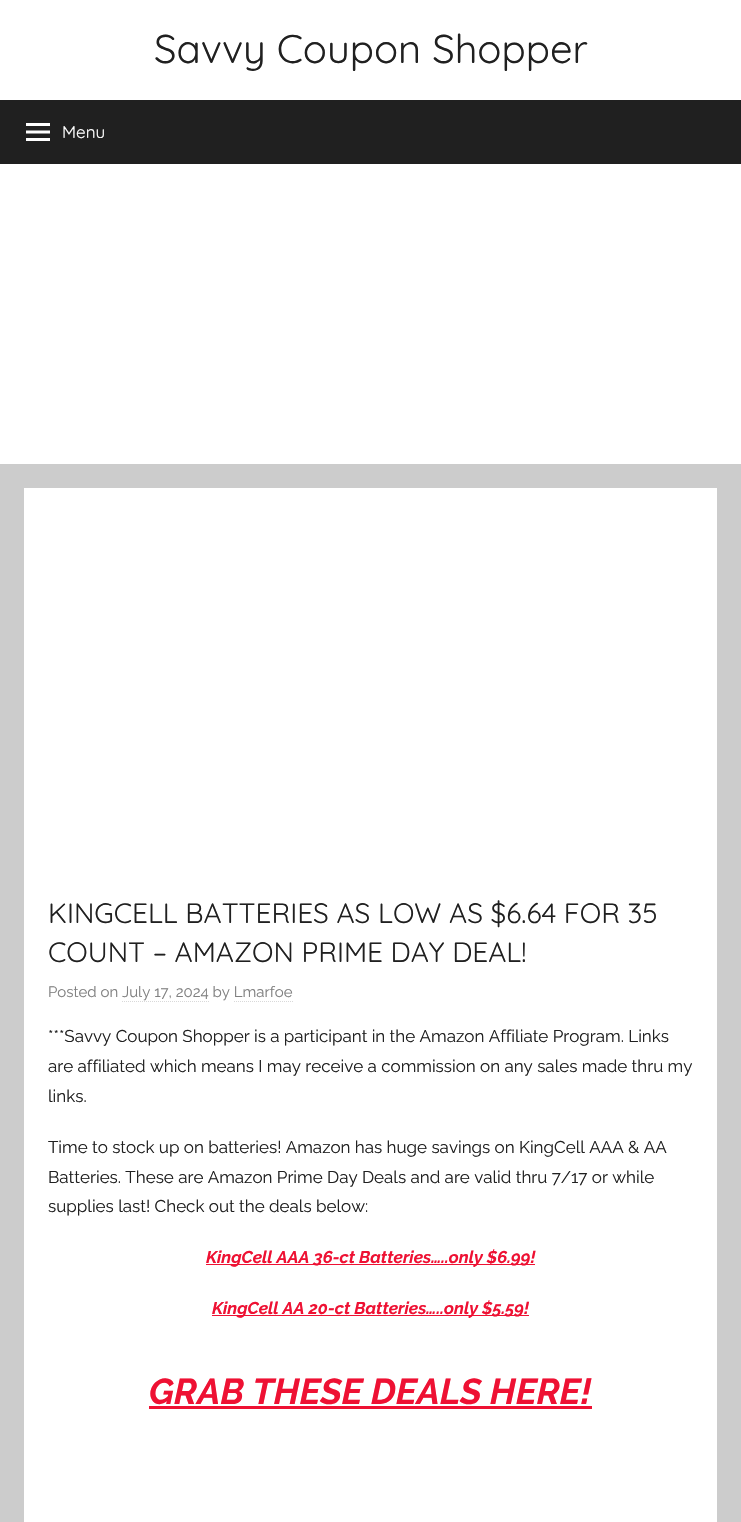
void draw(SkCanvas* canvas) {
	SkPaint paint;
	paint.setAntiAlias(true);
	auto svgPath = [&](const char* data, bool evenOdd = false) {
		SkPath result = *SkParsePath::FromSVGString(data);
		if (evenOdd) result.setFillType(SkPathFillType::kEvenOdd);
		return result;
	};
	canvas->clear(0xffcccccc);
	paint.setColor(0xffffffff);
	canvas->drawRect(SkRect::MakeXYWH(0, 0, 741, 464), paint);
	SkFont f1(fontMgr->matchFamilyStyle("Quicksand", SkFontStyle(300, SkFontStyle::kNormal_Width, SkFontStyle::kUpright_Slant)), 40);
	f1.setSubpixel(true);
	paint.setColor(0xff202020);
	canvas->drawString("Savvy Coupon Shopper", 154, 63, f1, paint);
	canvas->drawRect(SkRect::MakeXYWH(0, 100, 741, 64), paint);
	canvas->drawImageRect(SkImages::DeferredFromEncodedData(SkData::MakeFromFileName("img1.png")), SkRect::MakeXYWH(26, 123, 24, 18), SkSamplingOptions());
	SkFont f2(fontMgr->matchFamilyStyle("Quicksand", SkFontStyle(300, SkFontStyle::kNormal_Width, SkFontStyle::kUpright_Slant)), 17);
	f2.setSubpixel(true);
	paint.setColor(0xffffffff);
	canvas->drawString("Menu", 62, 138, f2, paint);
	canvas->drawRect(SkRect::MakeXYWH(24, 488, 693, 1034), paint);
	SkFont f3(fontMgr->matchFamilyStyle("Quicksand", SkFontStyle(300, SkFontStyle::kNormal_Width, SkFontStyle::kUpright_Slant)), 28);
	f3.setSubpixel(true);
	paint.setColor(0xff202020);
	canvas->drawString("KINGCELL BATTERIES AS LOW AS $6.64 FOR 35", 48, 923, f3, paint);
	canvas->drawString("COUNT – AMAZON PRIME DAY DEAL!", 48, 962, f3, paint);
	SkFont f4(fontMgr->matchFamilyStyle("Raleway", SkFontStyle(100, SkFontStyle::kNormal_Width, SkFontStyle::kUpright_Slant)), 15);
	f4.setSubpixel(true);
	paint.setColor(0xff808080);
	canvas->drawString("Posted on July 17, 2024 by Lmarfoe", 48, 997, f4, paint);
	paint.setStroke(true);
	paint.setStrokeWidth(1);
	paint.setColor(0xffd9d9d9);
	paint.setPathEffect(SkDashPathEffect::Make({{1, 1}}, 0));
	canvas->drawPath(svgPath("M122 1001.5H209"), paint);
	paint.setPathEffect(nullptr);
	paint.setPathEffect(SkDashPathEffect::Make({{1, 1}}, 0));
	canvas->drawPath(svgPath("M234 1001.5H293"), paint);
	paint.setPathEffect(nullptr);
	SkFont f5(fontMgr->matchFamilyStyle("Raleway", SkFontStyle(100, SkFontStyle::kNormal_Width, SkFontStyle::kUpright_Slant)), 17);
	f5.setSubpixel(true);
	paint.setStroke(false);
	paint.setColor(0xff202020);
	canvas->drawString("***Savvy Coupon Shopper is a participant in the Amazon Affiliate Program. Links", 48, 1042, f5, paint);
	canvas->drawString("are affiliated which means I may receive a commission on any sales made thru my", 48, 1072, f5, paint);
	canvas->drawString("links.", 48, 1102, f5, paint);
	canvas->drawString("Time to stock up on batteries! Amazon has huge savings on KingCell AAA & AA", 48, 1153, f5, paint);
	canvas->drawString("Batteries. These are Amazon Prime Day Deals and are valid thru 7/17 or while", 48, 1183, f5, paint);
	canvas->drawString("supplies last! Check out the deals below:", 48, 1212, f5, paint);
	paint.setColor(0xffee1133);
	canvas->drawRect(SkRect::MakeXYWH(206, 1264, 329, 1), paint);
	SkFont f6(fontMgr->matchFamilyStyle("Raleway", SkFontStyle(100, SkFontStyle::kNormal_Width, SkFontStyle::kItalic_Slant)), 17);
	f6.setSubpixel(true);
	canvas->drawString("KingCell AAA 36-ct Batteries…..only $6.99!", 206, 1263, f6, paint);
	canvas->drawRect(SkRect::MakeXYWH(212, 1315, 317, 1), paint);
	canvas->drawString("KingCell AA 20-ct Batteries…..only $5.59!", 212, 1314, f6, paint);
	SkFont f7(fontMgr->matchFamilyStyle("Raleway", SkFontStyle(100, SkFontStyle::kNormal_Width, SkFontStyle::kItalic_Slant)), 36);
	f7.setSubpixel(true);
	canvas->drawString("GRAB THESE DEALS HERE!", 149, 1404, f7, paint);
	canvas->drawRect(SkRect::MakeXYWH(149, 1406, 443, 3), paint);
}
